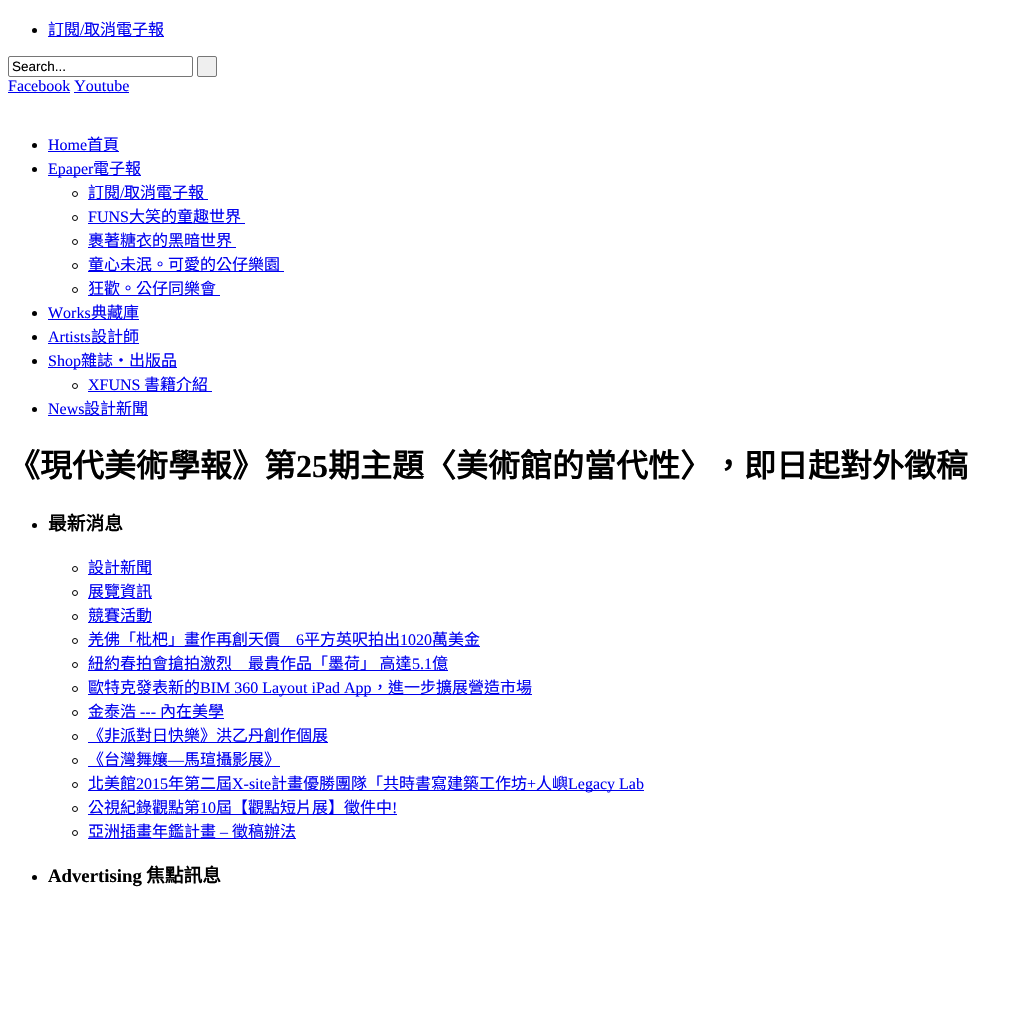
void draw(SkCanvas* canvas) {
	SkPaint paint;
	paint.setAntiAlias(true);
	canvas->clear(0xffffffff);
	paint.setColor(0xff000000);
	canvas->drawCircle(34.5, 30.5, 2.5, paint);
	paint.setColor(0xff0000ee);
	canvas->drawRect(SkRect::MakeXYWH(48, 36, 116, 1), paint);
	SkFont f1(fontMgr->matchFamilyStyle("Noto Sans CJK TC", SkFontStyle::Normal()), 16);
	f1.setSubpixel(true);
	canvas->drawString("訂閱", 48, 35, f1, paint);
	SkFont f2(fontMgr->matchFamilyStyle("Liberation Serif", SkFontStyle::Normal()), 16);
	f2.setSubpixel(true);
	canvas->drawString("/", 80, 35, f2, paint);
	canvas->drawString("取消電子報", 84, 35, f1, paint);
	paint.setStroke(true);
	paint.setStrokeWidth(1);
	paint.setColor(0xff767676);
	canvas->drawRoundRect(SkRect::MakeXYWH(8.5, 56.5, 184, 20), 1.5, 1.5, paint);
	SkFont f3(fontMgr->matchFamilyStyle("Liberation Sans", SkFontStyle::Normal()), 13.5);
	f3.setSubpixel(true);
	paint.setStroke(false);
	paint.setColor(0xff000000);
	canvas->drawString("Search...", 12, 71, f3, paint);
	paint.setColor(0xffefefef);
	canvas->drawRoundRect(SkRect::MakeXYWH(197.5, 56.5, 19, 20), 1.5, 1.5, paint);
	paint.setStroke(true);
	paint.setColor(0xff767676);
	canvas->drawRoundRect(SkRect::MakeXYWH(197.5, 56.5, 19, 20), 1.5, 1.5, paint);
	paint.setStroke(false);
	paint.setColor(0xff0000ee);
	canvas->drawString("Facebook Youtube", 8, 91, f2, paint);
	canvas->drawRect(SkRect::MakeXYWH(8, 92, 62, 1), paint);
	canvas->drawRect(SkRect::MakeXYWH(74, 92, 55, 1), paint);
	paint.setColor(0xff000000);
	canvas->drawCircle(34.5, 145.5, 2.5, paint);
	paint.setColor(0xff0000ee);
	canvas->drawString("Home", 48, 150, f2, paint);
	canvas->drawRect(SkRect::MakeXYWH(48, 151, 71, 1), paint);
	canvas->drawString("首頁", 87, 150, f1, paint);
	paint.setColor(0xff000000);
	canvas->drawCircle(34.5, 169.5, 2.5, paint);
	paint.setColor(0xff0000ee);
	canvas->drawRect(SkRect::MakeXYWH(48, 175, 45, 1), paint);
	canvas->drawString("Epaper", 48, 174, f2, paint);
	canvas->drawRect(SkRect::MakeXYWH(93, 175, 48, 1), paint);
	canvas->drawString("電子報", 93, 174, f1, paint);
	paint.setStroke(true);
	paint.setColor(0xff000000);
	canvas->drawCircle(75, 194, 2.5, paint);
	paint.setStroke(false);
	paint.setColor(0xff0000ee);
	canvas->drawRect(SkRect::MakeXYWH(88, 199, 120, 1), paint);
	canvas->drawString("訂閱", 88, 198, f1, paint);
	canvas->drawString("/", 120, 198, f2, paint);
	canvas->drawString("取消電子報", 124, 198, f1, paint);
	paint.setStroke(true);
	paint.setColor(0xff000000);
	canvas->drawCircle(75, 218, 2.5, paint);
	paint.setStroke(false);
	paint.setColor(0xff0000ee);
	canvas->drawString("FUNS", 88, 222, f2, paint);
	canvas->drawRect(SkRect::MakeXYWH(88, 223, 157, 1), paint);
	canvas->drawString("大笑的童趣世界", 129, 222, f1, paint);
	paint.setStroke(true);
	paint.setColor(0xff000000);
	canvas->drawCircle(75, 242, 2.5, paint);
	paint.setStroke(false);
	paint.setColor(0xff0000ee);
	canvas->drawRect(SkRect::MakeXYWH(88, 247, 148, 1), paint);
	canvas->drawString("裹著糖衣的黑暗世界", 88, 246, f1, paint);
	paint.setStroke(true);
	paint.setColor(0xff000000);
	canvas->drawCircle(75, 266, 2.5, paint);
	paint.setStroke(false);
	paint.setColor(0xff0000ee);
	canvas->drawRect(SkRect::MakeXYWH(88, 271, 196, 1), paint);
	canvas->drawString("童心未泯。可愛的公仔樂園", 88, 270, f1, paint);
	paint.setStroke(true);
	paint.setColor(0xff000000);
	canvas->drawCircle(75, 290, 2.5, paint);
	paint.setStroke(false);
	paint.setColor(0xff0000ee);
	canvas->drawRect(SkRect::MakeXYWH(88, 295, 132, 1), paint);
	canvas->drawString("狂歡。公仔同樂會", 88, 294, f1, paint);
	paint.setColor(0xff000000);
	canvas->drawCircle(34.5, 313.5, 2.5, paint);
	paint.setColor(0xff0000ee);
	canvas->drawString("Works", 48, 318, f2, paint);
	canvas->drawRect(SkRect::MakeXYWH(48, 319, 91, 1), paint);
	canvas->drawString("典藏庫", 91, 318, f1, paint);
	paint.setColor(0xff000000);
	canvas->drawCircle(34.5, 337.5, 2.5, paint);
	paint.setColor(0xff0000ee);
	canvas->drawString("Artists", 48, 342, f2, paint);
	canvas->drawRect(SkRect::MakeXYWH(48, 343, 91, 1), paint);
	canvas->drawString("設計師", 91, 342, f1, paint);
	paint.setColor(0xff000000);
	canvas->drawCircle(34.5, 361.5, 2.5, paint);
	paint.setColor(0xff0000ee);
	canvas->drawRect(SkRect::MakeXYWH(48, 367, 129, 1), paint);
	canvas->drawString("Shop", 48, 366, f2, paint);
	canvas->drawString("雜誌‧出版品", 81, 366, f1, paint);
	paint.setStroke(true);
	paint.setColor(0xff000000);
	canvas->drawCircle(75, 386, 2.5, paint);
	paint.setStroke(false);
	paint.setColor(0xff0000ee);
	canvas->drawString("XFUNS", 88, 390, f2, paint);
	canvas->drawRect(SkRect::MakeXYWH(88, 391, 124, 1), paint);
	canvas->drawString("書籍介紹", 144, 390, f1, paint);
	paint.setColor(0xff000000);
	canvas->drawCircle(34.5, 409.5, 2.5, paint);
	paint.setColor(0xff0000ee);
	canvas->drawString("News", 48, 414, f2, paint);
	canvas->drawRect(SkRect::MakeXYWH(48, 415, 100, 1), paint);
	canvas->drawString("設計新聞", 84, 414, f1, paint);
	SkFont f4(fontMgr->matchFamilyStyle("Noto Sans CJK TC", SkFontStyle::Bold()), 32);
	f4.setSubpixel(true);
	paint.setColor(0xff000000);
	canvas->drawString("《現代美術學報》第", 8, 477, f4, paint);
	SkFont f5(fontMgr->matchFamilyStyle("Liberation Serif", SkFontStyle::Bold()), 32);
	f5.setSubpixel(true);
	canvas->drawString("25", 296, 477, f5, paint);
	canvas->drawString("期主題〈美術館的當代性〉，即日起對外徵稿", 328, 477, f4, paint);
	canvas->drawCircle(34.5, 525.5, 2.5, paint);
	SkFont f6(fontMgr->matchFamilyStyle("Noto Sans CJK TC", SkFontStyle::Bold()), 18.75);
	f6.setSubpixel(true);
	canvas->drawString("最新消息", 48, 530, f6, paint);
	paint.setStroke(true);
	canvas->drawCircle(75, 569, 2.5, paint);
	paint.setStroke(false);
	paint.setColor(0xff0000ee);
	canvas->drawRect(SkRect::MakeXYWH(88, 574, 64, 1), paint);
	canvas->drawString("設計新聞", 88, 573, f1, paint);
	paint.setStroke(true);
	paint.setColor(0xff000000);
	canvas->drawCircle(75, 593, 2.5, paint);
	paint.setStroke(false);
	paint.setColor(0xff0000ee);
	canvas->drawRect(SkRect::MakeXYWH(88, 598, 64, 1), paint);
	canvas->drawString("展覽資訊", 88, 597, f1, paint);
	paint.setStroke(true);
	paint.setColor(0xff000000);
	canvas->drawCircle(75, 617, 2.5, paint);
	paint.setStroke(false);
	paint.setColor(0xff0000ee);
	canvas->drawRect(SkRect::MakeXYWH(88, 622, 64, 1), paint);
	canvas->drawString("競賽活動", 88, 621, f1, paint);
	paint.setStroke(true);
	paint.setColor(0xff000000);
	canvas->drawCircle(75, 641, 2.5, paint);
	paint.setStroke(false);
	paint.setColor(0xff0000ee);
	canvas->drawRect(SkRect::MakeXYWH(88, 646, 392, 1), paint);
	canvas->drawString("羌佛「枇杷」畫作再創天價", 88, 645, f1, paint);
	canvas->drawString("6", 296, 645, f2, paint);
	canvas->drawString("平方英呎拍出", 304, 645, f1, paint);
	canvas->drawString("1020", 400, 645, f2, paint);
	canvas->drawString("萬美金", 432, 645, f1, paint);
	paint.setStroke(true);
	paint.setColor(0xff000000);
	canvas->drawCircle(75, 665, 2.5, paint);
	paint.setStroke(false);
	paint.setColor(0xff0000ee);
	canvas->drawRect(SkRect::MakeXYWH(88, 670, 360, 1), paint);
	canvas->drawString("紐約春拍會搶拍激烈　最貴作品「墨荷」 高達", 88, 669, f1, paint);
	canvas->drawString("5.1", 412, 669, f2, paint);
	canvas->drawString("億", 432, 669, f1, paint);
	paint.setStroke(true);
	paint.setColor(0xff000000);
	canvas->drawCircle(75, 689, 2.5, paint);
	paint.setStroke(false);
	paint.setColor(0xff0000ee);
	canvas->drawRect(SkRect::MakeXYWH(88, 694, 444, 1), paint);
	canvas->drawString("歐特克發表新的", 88, 693, f1, paint);
	canvas->drawString("BIM 360 Layout iPad App", 200, 693, f2, paint);
	canvas->drawString("，進一步擴展營造市場", 372, 693, f1, paint);
	paint.setStroke(true);
	paint.setColor(0xff000000);
	canvas->drawCircle(75, 713, 2.5, paint);
	paint.setStroke(false);
	paint.setColor(0xff0000ee);
	canvas->drawRect(SkRect::MakeXYWH(88, 718, 136, 1), paint);
	canvas->drawString("金泰浩", 88, 717, f1, paint);
	canvas->drawString("---", 140, 717, f2, paint);
	canvas->drawString("內在美學", 160, 717, f1, paint);
	paint.setStroke(true);
	paint.setColor(0xff000000);
	canvas->drawCircle(75, 737, 2.5, paint);
	paint.setStroke(false);
	paint.setColor(0xff0000ee);
	canvas->drawRect(SkRect::MakeXYWH(88, 742, 240, 1), paint);
	canvas->drawString("《非派對日快樂》洪乙丹創作個展", 88, 741, f1, paint);
	paint.setStroke(true);
	paint.setColor(0xff000000);
	canvas->drawCircle(75, 761, 2.5, paint);
	paint.setStroke(false);
	paint.setColor(0xff0000ee);
	canvas->drawRect(SkRect::MakeXYWH(88, 766, 192, 1), paint);
	canvas->drawString("《台灣舞孃", 88, 765, f1, paint);
	canvas->drawString("—", 168, 765, f2, paint);
	canvas->drawString("馬瑄攝影展》", 184, 765, f1, paint);
	paint.setStroke(true);
	paint.setColor(0xff000000);
	canvas->drawCircle(75, 785, 2.5, paint);
	paint.setStroke(false);
	paint.setColor(0xff0000ee);
	canvas->drawRect(SkRect::MakeXYWH(88, 790, 556, 1), paint);
	canvas->drawString("北美館", 88, 789, f1, paint);
	canvas->drawString("2015", 136, 789, f2, paint);
	canvas->drawString("年第二屆", 168, 789, f1, paint);
	canvas->drawString("X-site", 232, 789, f2, paint);
	canvas->drawString("計畫優勝團隊「共時書寫建築工作坊", 271, 789, f1, paint);
	canvas->drawString("+", 527, 789, f2, paint);
	canvas->drawString("人嶼", 536, 789, f1, paint);
	canvas->drawString("Legacy Lab", 568, 789, f2, paint);
	paint.setStroke(true);
	paint.setColor(0xff000000);
	canvas->drawCircle(75, 809, 2.5, paint);
	paint.setStroke(false);
	paint.setColor(0xff0000ee);
	canvas->drawRect(SkRect::MakeXYWH(88, 814, 309, 1), paint);
	canvas->drawString("公視紀錄觀點第", 88, 813, f1, paint);
	canvas->drawString("10", 200, 813, f2, paint);
	canvas->drawString("屆【觀點短片展】徵件中", 216, 813, f1, paint);
	canvas->drawString("!", 392, 813, f2, paint);
	paint.setStroke(true);
	paint.setColor(0xff000000);
	canvas->drawCircle(75, 833, 2.5, paint);
	paint.setStroke(false);
	paint.setColor(0xff0000ee);
	canvas->drawRect(SkRect::MakeXYWH(88, 838, 208, 1), paint);
	canvas->drawString("亞洲插畫年鑑計畫", 88, 837, f1, paint);
	canvas->drawString("–", 220, 837, f2, paint);
	canvas->drawString("徵稿辦法", 232, 837, f1, paint);
	paint.setColor(0xff000000);
	canvas->drawCircle(34.5, 877.5, 2.5, paint);
	SkFont f7(fontMgr->matchFamilyStyle("Liberation Serif", SkFontStyle::Bold()), 18.75);
	f7.setSubpixel(true);
	canvas->drawString("Advertising", 48, 882, f7, paint);
	canvas->drawString("焦點訊息", 146, 882, f6, paint);
}
